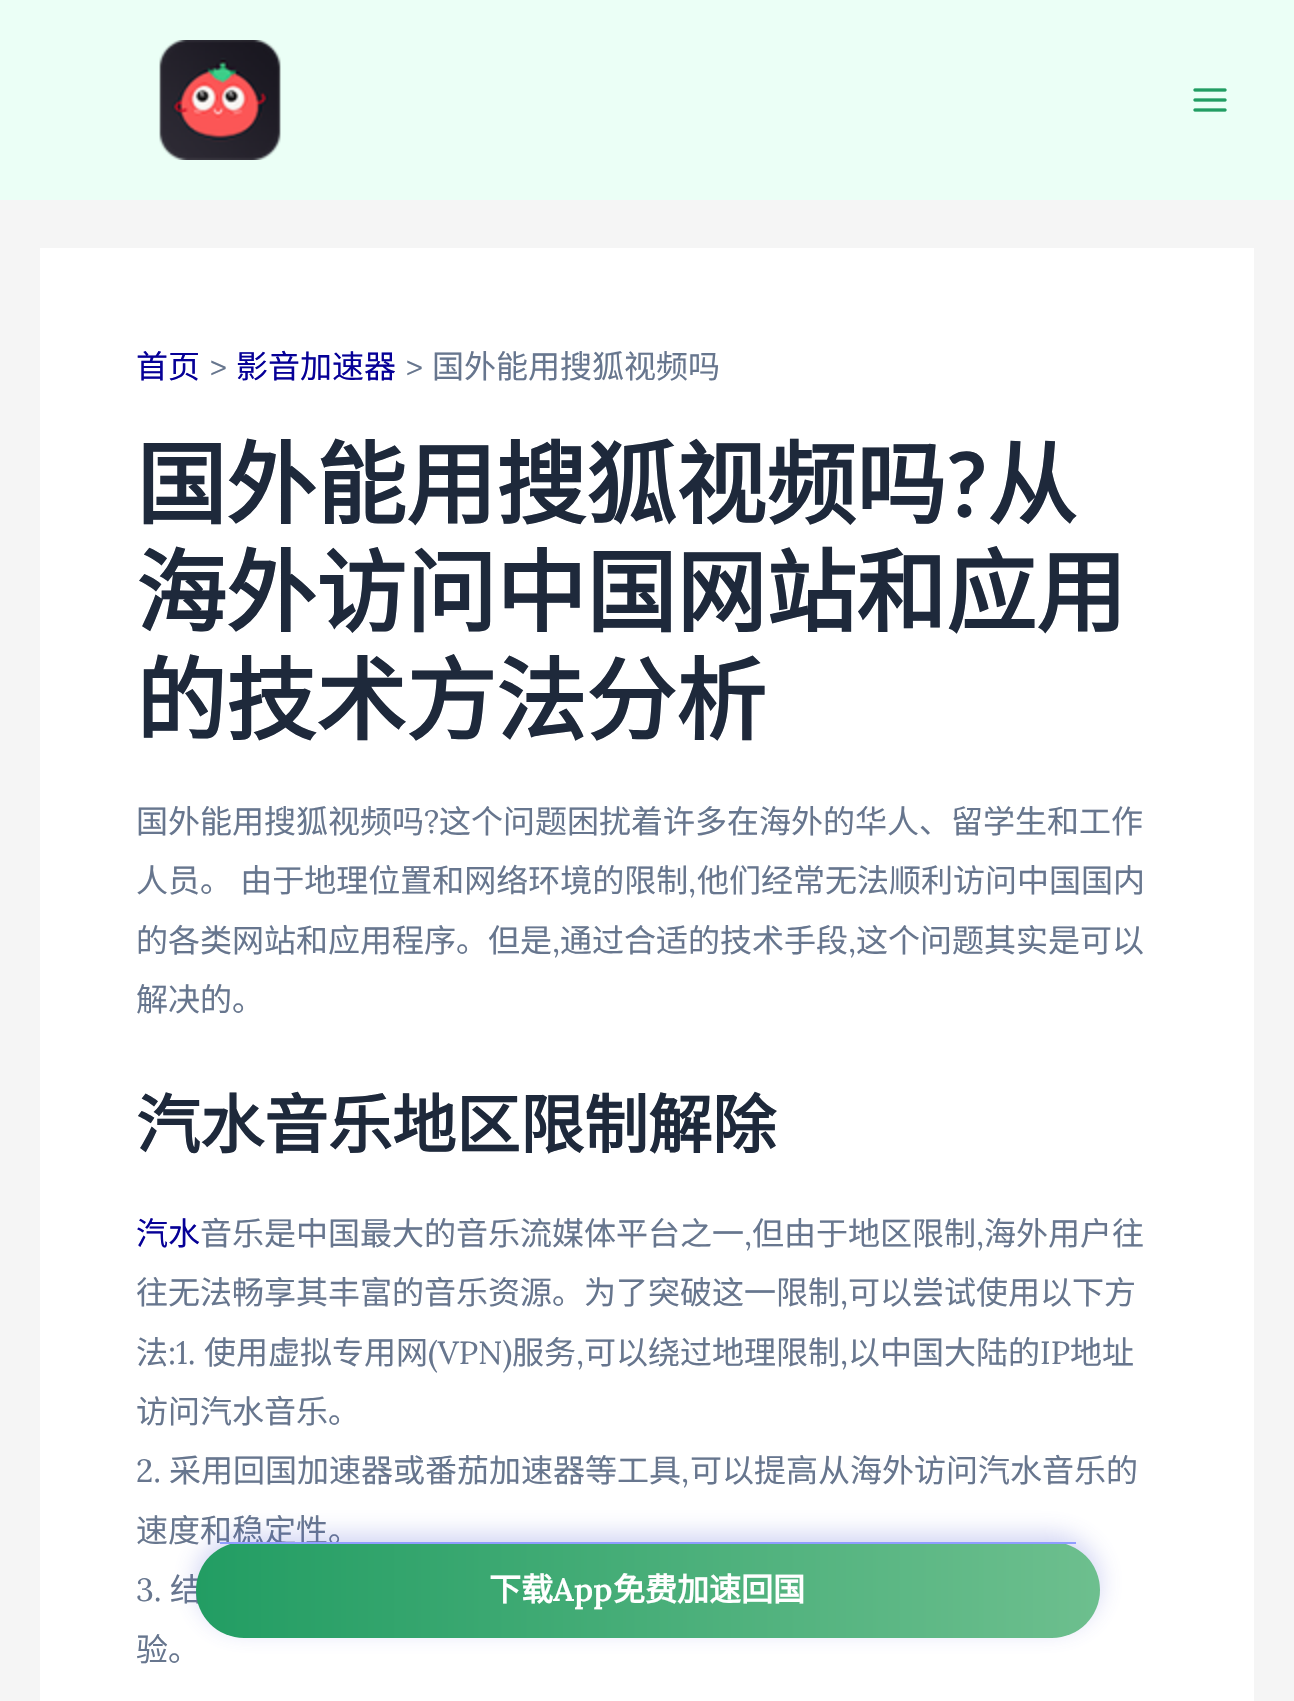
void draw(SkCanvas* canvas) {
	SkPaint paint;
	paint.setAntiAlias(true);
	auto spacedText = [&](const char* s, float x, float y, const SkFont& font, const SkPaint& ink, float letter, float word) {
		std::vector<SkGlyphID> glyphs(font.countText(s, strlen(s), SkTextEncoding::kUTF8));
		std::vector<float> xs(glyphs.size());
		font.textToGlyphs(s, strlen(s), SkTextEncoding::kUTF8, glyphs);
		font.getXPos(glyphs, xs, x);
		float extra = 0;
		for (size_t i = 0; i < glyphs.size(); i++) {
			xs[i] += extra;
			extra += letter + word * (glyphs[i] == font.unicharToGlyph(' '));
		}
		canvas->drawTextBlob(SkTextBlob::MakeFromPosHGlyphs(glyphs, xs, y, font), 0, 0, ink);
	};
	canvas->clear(0xfff5f5f5);
	paint.setColor(0xffebfff6);
	canvas->drawRect(SkRect::MakeXYWH(0, 0, 1294, 200), paint);
	canvas->drawImageRect(SkImages::DeferredFromEncodedData(SkData::MakeFromFileName("img1.png")), SkRect::MakeXYWH(159, 40, 122, 120), SkSamplingOptions());
	canvas->drawImageRect(SkImages::DeferredFromEncodedData(SkData::MakeFromFileName("img2.png")), SkRect::MakeXYWH(1193, 88, 34, 24), SkSamplingOptions());
	paint.setColor(0xffffffff);
	canvas->drawRect(SkRect::MakeXYWH(40, 248, 1214, 1453), paint);
	SkFont f1(fontMgr->matchFamilyStyle("Noto Sans CJK SC", SkFontStyle::Normal()), 32);
	f1.setSubpixel(true);
	paint.setColor(0xff060097);
	canvas->drawString("首页", 136, 378, f1, paint);
	SkFont f2(fontMgr->matchFamilyStyle("Lora", SkFontStyle::Normal()), 32);
	f2.setSubpixel(true);
	paint.setColor(0xff67768e);
	canvas->drawString(">", 210, 378, f2, paint);
	paint.setColor(0xff060097);
	canvas->drawString("影音加速器", 236, 378, f1, paint);
	paint.setColor(0xff67768e);
	canvas->drawString(">", 406, 378, f2, paint);
	canvas->drawString("国外能用搜狐视频吗", 432, 378, f1, paint);
	SkFont f3(fontMgr->matchFamilyStyle("Noto Sans CJK SC", SkFontStyle::Bold()), 90);
	f3.setSubpixel(true);
	paint.setColor(0xff1e293b);
	canvas->drawString("国外能用搜狐视频吗", 136, 517, f3, paint);
	SkFont f4(fontMgr->matchFamilyStyle("Lato", SkFontStyle::Bold()), 90);
	f4.setSubpixel(true);
	canvas->drawString("?", 946, 517, f4, paint);
	canvas->drawString("从", 987, 517, f3, paint);
	canvas->drawString("海外访问中国网站和应用", 136, 625, f3, paint);
	canvas->drawString("的技术方法分析", 136, 733, f3, paint);
	paint.setColor(0xff67768e);
	canvas->drawString("国外能用搜狐视频吗", 136, 833, f1, paint);
	canvas->drawString("?", 424, 833, f2, paint);
	canvas->drawString("这个问题困扰着许多在海外的华人、留学生和工作", 439, 833, f1, paint);
	spacedText("人员。 由于地理位置和网络环境的限制", 136, 892, f1, paint, 0, 1);
	canvas->drawString(",", 688, 892, f2, paint);
	canvas->drawString("他们经常无法顺利访问中国国内", 697, 892, f1, paint);
	canvas->drawString("的各类网站和应用程序。但是", 136, 952, f1, paint);
	canvas->drawString(",", 552, 952, f2, paint);
	canvas->drawString("通过合适的技术手段", 560, 952, f1, paint);
	canvas->drawString(",", 848, 952, f2, paint);
	canvas->drawString("这个问题其实是可以", 856, 952, f1, paint);
	canvas->drawString("解决的。", 136, 1011, f1, paint);
	SkFont f5(fontMgr->matchFamilyStyle("Noto Sans CJK SC", SkFontStyle::Bold()), 64);
	f5.setSubpixel(true);
	paint.setColor(0xff1e293b);
	canvas->drawString("汽水音乐地区限制解除", 136, 1148, f5, paint);
	paint.setColor(0xff060097);
	canvas->drawString("汽水", 136, 1245, f1, paint);
	paint.setColor(0xff67768e);
	canvas->drawString("音乐是中国最大的音乐流媒体平台之一", 200, 1245, f1, paint);
	canvas->drawString(",", 744, 1245, f2, paint);
	canvas->drawString("但由于地区限制", 752, 1245, f1, paint);
	canvas->drawString(",", 976, 1245, f2, paint);
	canvas->drawString("海外用户往", 984, 1245, f1, paint);
	canvas->drawString("往无法畅享其丰富的音乐资源。为了突破这一限制", 136, 1304, f1, paint);
	canvas->drawString(",", 840, 1304, f2, paint);
	canvas->drawString("可以尝试使用以下方", 848, 1304, f1, paint);
	canvas->drawString("法", 136, 1364, f1, paint);
	canvas->drawString(":1.", 168, 1364, f2, paint);
	canvas->drawString("使用虚拟专用网", 204, 1364, f1, paint);
	canvas->drawString("(VPN)", 428, 1364, f2, paint);
	canvas->drawString("服务", 512, 1364, f1, paint);
	canvas->drawString("可以绕过地理限制", 584, 1364, f1, paint);
	canvas->drawString("以中国大陆的", 848, 1364, f1, paint);
	canvas->drawString("IP", 1040, 1364, f2, paint);
	canvas->drawString("地址", 1070, 1364, f1, paint);
	canvas->drawString(",", 576, 1364, f2, paint);
	canvas->drawString(",", 840, 1364, f2, paint);
	canvas->drawString("访问汽水音乐。", 136, 1423, f1, paint);
	canvas->drawString("2.", 136, 1482, f2, paint);
	canvas->drawString("采用回国加速器或番茄加速器等工具", 169, 1482, f1, paint);
	canvas->drawString(",", 681, 1482, f2, paint);
	canvas->drawString("可以提高从海外访问汽水音乐的", 690, 1482, f1, paint);
	canvas->drawString("速度和稳定性。", 136, 1542, f1, paint);
	canvas->drawString("3.", 136, 1601, f2, paint);
	canvas->drawString("结", 170, 1601, f1, paint);
	canvas->drawString("验。", 136, 1661, f1, paint);
	paint.setColor(0x404755d1);
	paint.setMaskFilter(SkMaskFilter::MakeBlur(kNormal_SkBlurStyle, 12));
	canvas->drawRoundRect(SkRect::MakeXYWH(196, 1534, 904, 96), 48, 48, paint);
	paint.setMaskFilter(nullptr);
	{
		const SkColor colors[] = {0xff229d63, 0xff6dbf8e};
		const float stops[] = {0, 1};
		const SkPoint ends[] = {{195, 1591}, {1099, 1591}};
		paint.setShader(SkGradientShader::MakeLinear(ends, colors, stops, 2, SkTileMode::kClamp));
		paint.setAlpha(255);
	}
	canvas->drawRoundRect(SkRect::MakeXYWH(196, 1542, 904, 96), 48, 48, paint);
	paint.setShader(nullptr);
	paint.setColor(0xff909dff);
	canvas->drawRect(SkRect::MakeXYWH(220, 1542, 856, 2), paint);
	SkFont f6(fontMgr->matchFamilyStyle("Noto Sans CJK SC", SkFontStyle::Bold()), 32);
	f6.setSubpixel(true);
	paint.setColor(0xffffffff);
	canvas->drawString("下载", 489, 1601, f6, paint);
	SkFont f7(fontMgr->matchFamilyStyle("Lora", SkFontStyle(600, SkFontStyle::kNormal_Width, SkFontStyle::kUpright_Slant)), 32);
	f7.setSubpixel(true);
	canvas->drawString("App", 553, 1601, f7, paint);
	canvas->drawString("免费加速回国", 613, 1601, f6, paint);
}
